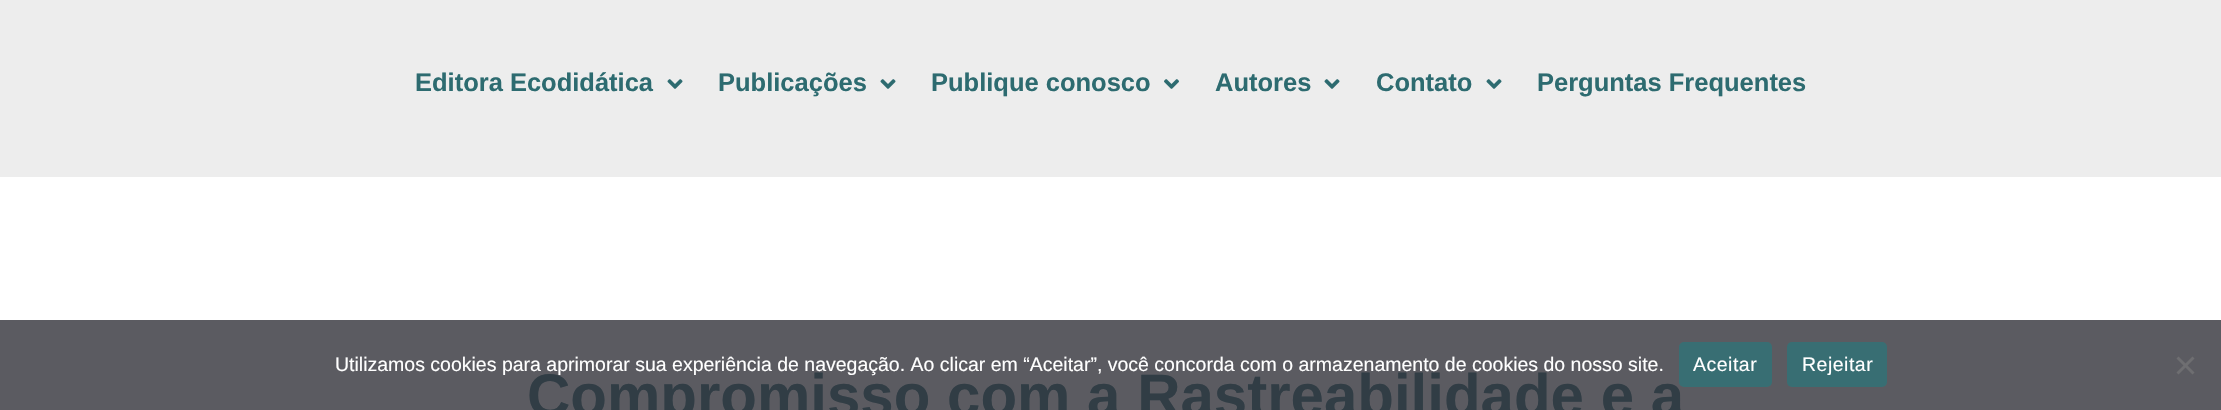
void draw(SkCanvas* canvas) {
	SkPaint paint;
	paint.setAntiAlias(true);
	auto spacedText = [&](const char* s, float x, float y, const SkFont& font, const SkPaint& ink, float letter, float word) {
		std::vector<SkGlyphID> glyphs(font.countText(s, strlen(s), SkTextEncoding::kUTF8));
		std::vector<float> xs(glyphs.size());
		font.textToGlyphs(s, strlen(s), SkTextEncoding::kUTF8, glyphs);
		font.getXPos(glyphs, xs, x);
		float extra = 0;
		for (size_t i = 0; i < glyphs.size(); i++) {
			xs[i] += extra;
			extra += letter + word * (glyphs[i] == font.unicharToGlyph(' '));
		}
		canvas->drawTextBlob(SkTextBlob::MakeFromPosHGlyphs(glyphs, xs, y, font), 0, 0, ink);
	};
	auto svgPath = [&](const char* data, bool evenOdd = false) {
		SkPath result = *SkParsePath::FromSVGString(data);
		if (evenOdd) result.setFillType(SkPathFillType::kEvenOdd);
		return result;
	};
	canvas->clear(0xffffffff);
	paint.setColor(0xff5b5b61);
	canvas->drawRect(SkRect::MakeXYWH(0, 320, 2221, 90), paint);
	paint.setColor(0xffededed);
	canvas->drawRect(SkRect::MakeXYWH(0, 0, 2221, 177), paint);
	SkFont f1(fontMgr->matchFamilyStyle("Liberation Sans", SkFontStyle::Bold()), 25.5);
	f1.setSubpixel(true);
	paint.setColor(0xff2d6b70);
	canvas->drawString("Editora Ecodidática", 415, 91, f1, paint);
	canvas->drawImageRect(SkImages::DeferredFromEncodedData(SkData::MakeFromFileName("img1.png")), SkRect::MakeXYWH(667, 79, 16, 10), SkSamplingOptions());
	canvas->drawString("Publicações", 718, 91, f1, paint);
	canvas->drawImageRect(SkImages::DeferredFromEncodedData(SkData::MakeFromFileName("img1.png")), SkRect::MakeXYWH(880, 79, 16, 10), SkSamplingOptions());
	canvas->drawString("Publique conosco", 931, 91, f1, paint);
	canvas->drawImageRect(SkImages::DeferredFromEncodedData(SkData::MakeFromFileName("img2.png")), SkRect::MakeXYWH(1164, 79, 15, 10), SkSamplingOptions());
	canvas->drawString("Autores", 1215, 91, f1, paint);
	canvas->drawImageRect(SkImages::DeferredFromEncodedData(SkData::MakeFromFileName("img1.png")), SkRect::MakeXYWH(1324, 79, 16, 10), SkSamplingOptions());
	canvas->drawString("Contato", 1376, 91, f1, paint);
	canvas->drawImageRect(SkImages::DeferredFromEncodedData(SkData::MakeFromFileName("img1.png")), SkRect::MakeXYWH(1486, 79, 16, 10), SkSamplingOptions());
	canvas->drawString("Perguntas Frequentes", 1537, 91, f1, paint);
	SkFont f2(fontMgr->matchFamilyStyle("Liberation Sans", SkFontStyle::Bold()), 60);
	f2.setSubpixel(true);
	paint.setColor(0xff313d45);
	canvas->drawString("Compromisso com a Rastreabilidade e a", 527, 416, f2, paint);
	SkFont f3(fontMgr->matchFamilyStyle("Liberation Sans", SkFontStyle::Normal()), 19.5);
	f3.setSubpixel(true);
	paint.setColor(0xffffffff);
	canvas->drawString("Utilizamos cookies para aprimorar sua experiência de navegação. Ao clicar em “Aceitar”, você concorda com o armazenamento de cookies do nosso site.", 335, 371, f3, paint);
	paint.setColor(0xff386e73);
	canvas->drawRoundRect(SkRect::MakeXYWH(1679, 342, 93, 45), 5, 5, paint);
	paint.setColor(0xffffffff);
	spacedText("Aceitar", 1693, 371, f3, paint, 0.5, 0);
	paint.setColor(0xff386e73);
	canvas->drawRoundRect(SkRect::MakeXYWH(1787, 342, 100, 45), 5, 5, paint);
	paint.setColor(0xffffffff);
	spacedText("Rejeitar", 1802, 371, f3, paint, 0.5, 0);
	paint.setColor(0xff6e6e71);
	canvas->drawPath(svgPath("M2192.5 356.5L2194.5 358.5L2178.5 374.5L2176.5 372.5Z"), paint);
	canvas->drawPath(svgPath("M2176.5 358.5L2178.5 356.5L2194.5 372.5L2192.5 374.5Z"), paint);
}
